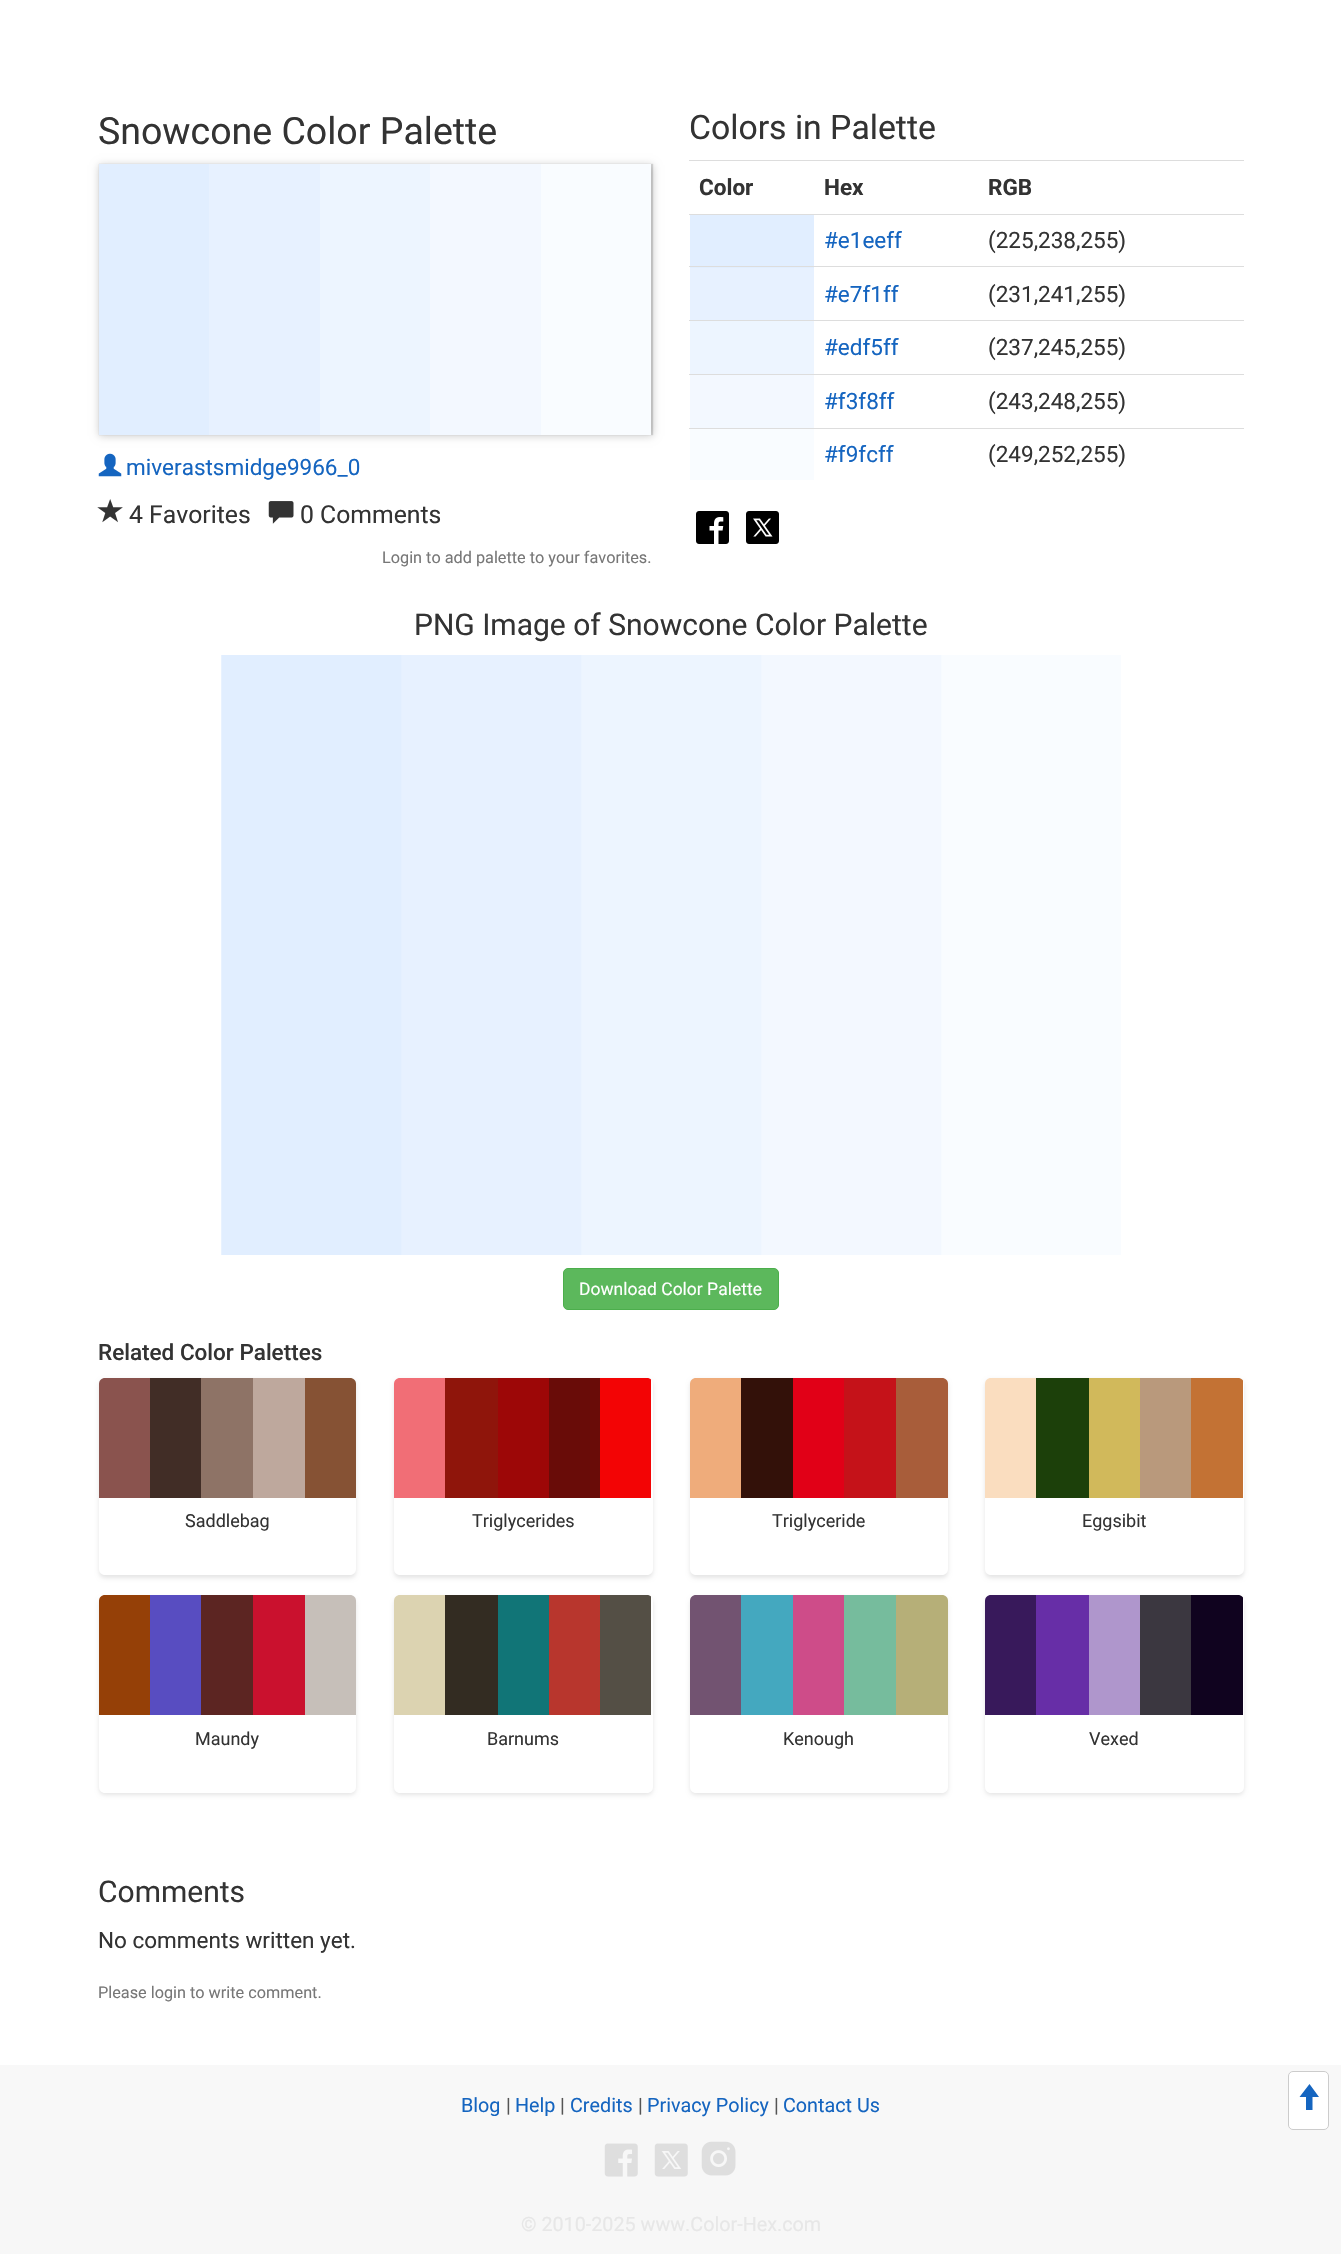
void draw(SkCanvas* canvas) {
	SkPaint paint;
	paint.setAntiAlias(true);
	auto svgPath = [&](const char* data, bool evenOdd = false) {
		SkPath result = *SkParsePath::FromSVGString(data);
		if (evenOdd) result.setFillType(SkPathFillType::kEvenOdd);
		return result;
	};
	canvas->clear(0xffffffff);
	SkFont f1(fontMgr->matchFamilyStyle("Roboto", SkFontStyle::Normal()), 37.5);
	f1.setSubpixel(true);
	paint.setColor(0xff333333);
	canvas->drawString("Snowcone Color Palette", 98, 144, f1, paint);
	paint.setColor(0x33000000);
	paint.setMaskFilter(SkMaskFilter::MakeBlur(kNormal_SkBlurStyle, 4));
	canvas->drawRect(SkRect::MakeXYWH(99, 165, 554, 271), paint);
	paint.setMaskFilter(nullptr);
	paint.setColor(0x24000000);
	paint.setMaskFilter(SkMaskFilter::MakeBlur(kNormal_SkBlurStyle, 0.5));
	canvas->drawRect(SkRect::MakeXYWH(99, 164, 554, 271), paint);
	paint.setMaskFilter(nullptr);
	paint.setColor(0xffe1eeff);
	canvas->drawRect(SkRect::MakeXYWH(99, 164, 110, 271), paint);
	paint.setColor(0xffe7f1ff);
	canvas->drawRect(SkRect::MakeXYWH(209, 164, 111, 271), paint);
	paint.setColor(0xffedf5ff);
	canvas->drawRect(SkRect::MakeXYWH(320, 164, 110, 271), paint);
	paint.setColor(0xfff3f8ff);
	canvas->drawRect(SkRect::MakeXYWH(430, 164, 111, 271), paint);
	paint.setColor(0xfff9fcff);
	canvas->drawRect(SkRect::MakeXYWH(541, 164, 110, 271), paint);
	canvas->drawImageRect(SkImages::DeferredFromEncodedData(SkData::MakeFromFileName("img1.png")), SkRect::MakeXYWH(98, 453, 24, 24), SkSamplingOptions());
	SkFont f2(fontMgr->matchFamilyStyle("Roboto", SkFontStyle::Normal()), 22.5);
	f2.setSubpixel(true);
	paint.setColor(0xff1565c0);
	canvas->drawString("miverastsmidge9966_0", 126, 475, f2, paint);
	canvas->drawImageRect(SkImages::DeferredFromEncodedData(SkData::MakeFromFileName("img2.png")), SkRect::MakeXYWH(97, 499, 26, 24), SkSamplingOptions());
	SkFont f3(fontMgr->matchFamilyStyle("Roboto", SkFontStyle::Normal()), 24.75);
	f3.setSubpixel(true);
	paint.setColor(0xff333333);
	canvas->drawString("4 Favorites", 129, 523, f3, paint);
	canvas->drawImageRect(SkImages::DeferredFromEncodedData(SkData::MakeFromFileName("img3.png")), SkRect::MakeXYWH(268, 501, 26, 23), SkSamplingOptions());
	canvas->drawString("0 Comments", 300, 523, f3, paint);
	SkFont f4(fontMgr->matchFamilyStyle("Roboto", SkFontStyle::Normal()), 16.25);
	f4.setSubpixel(true);
	paint.setColor(0xff777777);
	canvas->drawString("Login to add palette to your favorites.", 382, 563, f4, paint);
	SkFont f5(fontMgr->matchFamilyStyle("Roboto", SkFontStyle::Normal()), 33.75);
	f5.setSubpixel(true);
	paint.setColor(0xff333333);
	canvas->drawString("Colors in Palette", 689, 139, f5, paint);
	SkFont f6(fontMgr->matchFamilyStyle("Roboto", SkFontStyle::Bold()), 22.5);
	f6.setSubpixel(true);
	canvas->drawString("Color", 699, 195, f6, paint);
	canvas->drawString("Hex", 824, 195, f6, paint);
	paint.setColor(0xffdddddd);
	canvas->drawRect(SkRect::MakeXYWH(689, 160, 555, 1), paint);
	paint.setColor(0xff333333);
	canvas->drawString("RGB", 988, 195, f6, paint);
	paint.setColor(0xffe1eeff);
	canvas->drawRect(SkRect::MakeXYWH(690, 215, 124, 53), paint);
	paint.setColor(0xff1565c0);
	canvas->drawString("#e1eeff", 824, 248, f2, paint);
	paint.setColor(0xffdddddd);
	canvas->drawRect(SkRect::MakeXYWH(689, 214, 555, 1), paint);
	paint.setColor(0xff333333);
	canvas->drawString("(225,238,255)", 988, 248, f2, paint);
	paint.setColor(0xffe7f1ff);
	canvas->drawRect(SkRect::MakeXYWH(690, 268, 124, 52), paint);
	paint.setColor(0xff1565c0);
	canvas->drawString("#e7f1ff", 824, 302, f2, paint);
	paint.setColor(0xffdddddd);
	canvas->drawRect(SkRect::MakeXYWH(689, 266, 555, 1), paint);
	paint.setColor(0xff333333);
	canvas->drawString("(231,241,255)", 988, 302, f2, paint);
	paint.setColor(0xffedf5ff);
	canvas->drawRect(SkRect::MakeXYWH(690, 321, 124, 53), paint);
	paint.setColor(0xff1565c0);
	canvas->drawString("#edf5ff", 824, 355, f2, paint);
	paint.setColor(0xffdddddd);
	canvas->drawRect(SkRect::MakeXYWH(689, 320, 555, 1), paint);
	paint.setColor(0xff333333);
	canvas->drawString("(237,245,255)", 988, 355, f2, paint);
	paint.setColor(0xfff3f8ff);
	canvas->drawRect(SkRect::MakeXYWH(690, 375, 124, 53), paint);
	paint.setColor(0xff1565c0);
	canvas->drawString("#f3f8ff", 824, 409, f2, paint);
	paint.setColor(0xffdddddd);
	canvas->drawRect(SkRect::MakeXYWH(689, 374, 555, 1), paint);
	paint.setColor(0xff333333);
	canvas->drawString("(243,248,255)", 988, 409, f2, paint);
	paint.setColor(0xfff9fcff);
	canvas->drawRect(SkRect::MakeXYWH(690, 429, 124, 51), paint);
	paint.setColor(0xff1565c0);
	canvas->drawString("#f9fcff", 824, 462, f2, paint);
	paint.setColor(0xffdddddd);
	canvas->drawRect(SkRect::MakeXYWH(689, 428, 555, 1), paint);
	paint.setColor(0xff333333);
	canvas->drawString("(249,252,255)", 988, 462, f2, paint);
	canvas->drawImageRect(SkImages::DeferredFromEncodedData(SkData::MakeFromFileName("img4.png")), SkRect::MakeXYWH(696, 511, 33, 33), SkSamplingOptions());
	canvas->drawImageRect(SkImages::DeferredFromEncodedData(SkData::MakeFromFileName("img5.png")), SkRect::MakeXYWH(746, 511, 33, 33), SkSamplingOptions());
	SkFont f7(fontMgr->matchFamilyStyle("Roboto", SkFontStyle::Normal()), 30);
	f7.setSubpixel(true);
	canvas->drawString("PNG Image of Snowcone Color Palette", 414, 635, f7, paint);
	canvas->drawImageRect(SkImages::DeferredFromEncodedData(SkData::MakeFromFileName("img6.png")), SkRect::MakeXYWH(221, 655, 900, 600), SkSamplingOptions());
	paint.setColor(0xff5cb85c);
	canvas->drawRoundRect(SkRect::MakeXYWH(563.5, 1268.5, 215, 41), 4.5, 4.5, paint);
	paint.setStroke(true);
	paint.setStrokeWidth(1);
	paint.setColor(0xff4cae4c);
	canvas->drawRoundRect(SkRect::MakeXYWH(563.5, 1268.5, 215, 41), 4.5, 4.5, paint);
	SkFont f8(fontMgr->matchFamilyStyle("Roboto", SkFontStyle::Normal()), 17.5);
	f8.setSubpixel(true);
	paint.setStroke(false);
	paint.setColor(0xffffffff);
	canvas->drawString("Download Color Palette", 579, 1295, f8, paint);
	SkFont f9(fontMgr->matchFamilyStyle("Roboto", SkFontStyle(500, SkFontStyle::kNormal_Width, SkFontStyle::kUpright_Slant)), 22.5);
	f9.setSubpixel(true);
	paint.setColor(0xff333333);
	canvas->drawString("Related Color Palettes", 98, 1360, f9, paint);
	canvas->save();
	canvas->clipPath(svgPath("M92 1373H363V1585H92ZM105 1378H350C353.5 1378 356 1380.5 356 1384V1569C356 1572.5 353.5 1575 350 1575H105C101.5 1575 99 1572.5 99 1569V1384C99 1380.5 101.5 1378 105 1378Z", true), true);
	paint.setColor(0xffe5e5e5);
	paint.setMaskFilter(SkMaskFilter::MakeBlur(kNormal_SkBlurStyle, 2));
	canvas->drawRoundRect(SkRect::MakeXYWH(99, 1380, 257, 198), 6, 6, paint);
	paint.setMaskFilter(nullptr);
	canvas->restore();
	paint.setColor(0xff8a534e);
	canvas->drawPath(svgPath("M105 1378H150V1498H99V1384C99 1380.5 101.5 1378 105 1378Z"), paint);
	paint.setColor(0xff412d26);
	canvas->drawRect(SkRect::MakeXYWH(150, 1378, 51, 120), paint);
	paint.setColor(0xff8e7366);
	canvas->drawRect(SkRect::MakeXYWH(201, 1378, 52, 120), paint);
	paint.setColor(0xffbea89d);
	canvas->drawRect(SkRect::MakeXYWH(253, 1378, 52, 120), paint);
	paint.setColor(0xff865234);
	canvas->drawPath(svgPath("M305 1378H350C353.5 1378 356 1380.5 356 1384V1498H305Z"), paint);
	SkFont f10(fontMgr->matchFamilyStyle("Roboto", SkFontStyle::Normal()), 18);
	f10.setSubpixel(true);
	paint.setColor(0xff333333);
	canvas->drawString("Saddlebag", 185, 1527, f10, paint);
	canvas->save();
	canvas->clipPath(svgPath("M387 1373H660V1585H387ZM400 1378H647C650.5 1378 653 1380.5 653 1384V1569C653 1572.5 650.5 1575 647 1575H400C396.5 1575 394 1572.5 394 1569V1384C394 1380.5 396.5 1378 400 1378Z", true), true);
	paint.setColor(0xffe5e5e5);
	paint.setMaskFilter(SkMaskFilter::MakeBlur(kNormal_SkBlurStyle, 2));
	canvas->drawRoundRect(SkRect::MakeXYWH(394, 1380, 259, 198), 6, 6, paint);
	paint.setMaskFilter(nullptr);
	canvas->restore();
	paint.setColor(0xfff16e76);
	canvas->drawPath(svgPath("M400 1378H445V1498H394V1384C394 1380.5 396.5 1378 400 1378Z"), paint);
	paint.setColor(0xff8f150b);
	canvas->drawRect(SkRect::MakeXYWH(445, 1378, 53, 120), paint);
	paint.setColor(0xff9d0707);
	canvas->drawRect(SkRect::MakeXYWH(498, 1378, 51, 120), paint);
	paint.setColor(0xff690c08);
	canvas->drawRect(SkRect::MakeXYWH(549, 1378, 51, 120), paint);
	canvas->save();
	canvas->clipPath(svgPath("M400 1378H647C650.5 1378 653 1380.5 653 1384V1569C653 1572.5 650.5 1575 647 1575H400C396.5 1575 394 1572.5 394 1569V1384C394 1380.5 396.5 1378 400 1378Z"), true);
	paint.setColor(0xfff30405);
	canvas->drawRect(SkRect::MakeXYWH(600, 1378, 51, 120), paint);
	canvas->restore();
	paint.setColor(0xff333333);
	canvas->drawString("Triglycerides", 472, 1527, f10, paint);
	canvas->save();
	canvas->clipPath(svgPath("M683 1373H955V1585H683ZM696 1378H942C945.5 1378 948 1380.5 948 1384V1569C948 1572.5 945.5 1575 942 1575H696C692.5 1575 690 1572.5 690 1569V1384C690 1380.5 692.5 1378 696 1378Z", true), true);
	paint.setColor(0xffe5e5e5);
	paint.setMaskFilter(SkMaskFilter::MakeBlur(kNormal_SkBlurStyle, 2));
	canvas->drawRoundRect(SkRect::MakeXYWH(690, 1380, 258, 198), 6, 6, paint);
	paint.setMaskFilter(nullptr);
	canvas->restore();
	paint.setColor(0xffefac7b);
	canvas->drawPath(svgPath("M696 1378H741V1498H690V1384C690 1380.5 692.5 1378 696 1378Z"), paint);
	paint.setColor(0xff331109);
	canvas->drawRect(SkRect::MakeXYWH(741, 1378, 52, 120), paint);
	paint.setColor(0xffe10017);
	canvas->drawRect(SkRect::MakeXYWH(793, 1378, 51, 120), paint);
	paint.setColor(0xffc51219);
	canvas->drawRect(SkRect::MakeXYWH(844, 1378, 52, 120), paint);
	paint.setColor(0xffa85d3a);
	canvas->drawPath(svgPath("M896 1378H942C945.5 1378 948 1380.5 948 1384V1498H896Z"), paint);
	paint.setColor(0xff333333);
	canvas->drawString("Triglyceride", 772, 1527, f10, paint);
	canvas->save();
	canvas->clipPath(svgPath("M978 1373H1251V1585H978ZM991 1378H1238C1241.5 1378 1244 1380.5 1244 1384V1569C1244 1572.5 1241.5 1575 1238 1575H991C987.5 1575 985 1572.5 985 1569V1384C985 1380.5 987.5 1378 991 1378Z", true), true);
	paint.setColor(0xffe5e5e5);
	paint.setMaskFilter(SkMaskFilter::MakeBlur(kNormal_SkBlurStyle, 2));
	canvas->drawRoundRect(SkRect::MakeXYWH(985, 1380, 259, 198), 6, 6, paint);
	paint.setMaskFilter(nullptr);
	canvas->restore();
	paint.setColor(0xfffaddbf);
	canvas->drawPath(svgPath("M991 1378H1036V1498H985V1384C985 1380.5 987.5 1378 991 1378Z"), paint);
	paint.setColor(0xff1c400a);
	canvas->drawRect(SkRect::MakeXYWH(1036, 1378, 53, 120), paint);
	paint.setColor(0xffd1b95b);
	canvas->drawRect(SkRect::MakeXYWH(1089, 1378, 51, 120), paint);
	paint.setColor(0xffb9997c);
	canvas->drawRect(SkRect::MakeXYWH(1140, 1378, 51, 120), paint);
	canvas->save();
	canvas->clipPath(svgPath("M991 1378H1238C1241.5 1378 1244 1380.5 1244 1384V1569C1244 1572.5 1241.5 1575 1238 1575H991C987.5 1575 985 1572.5 985 1569V1384C985 1380.5 987.5 1378 991 1378Z"), true);
	paint.setColor(0xffc37234);
	canvas->drawRect(SkRect::MakeXYWH(1191, 1378, 52, 120), paint);
	canvas->restore();
	paint.setColor(0xff333333);
	canvas->drawString("Eggsibit", 1082, 1527, f10, paint);
	canvas->save();
	canvas->clipPath(svgPath("M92 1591H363V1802H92ZM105 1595H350C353.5 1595 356 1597.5 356 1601V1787C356 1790.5 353.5 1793 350 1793H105C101.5 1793 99 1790.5 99 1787V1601C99 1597.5 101.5 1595 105 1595Z", true), true);
	paint.setColor(0xffe5e5e5);
	paint.setMaskFilter(SkMaskFilter::MakeBlur(kNormal_SkBlurStyle, 2));
	canvas->drawRoundRect(SkRect::MakeXYWH(99, 1598, 257, 197), 6, 6, paint);
	paint.setMaskFilter(nullptr);
	canvas->restore();
	paint.setColor(0xff954007);
	canvas->drawPath(svgPath("M105 1595H150V1715H99V1601C99 1597.5 101.5 1595 105 1595Z"), paint);
	paint.setColor(0xff584dc1);
	canvas->drawRect(SkRect::MakeXYWH(150, 1595, 51, 120), paint);
	paint.setColor(0xff5c2522);
	canvas->drawRect(SkRect::MakeXYWH(201, 1595, 52, 120), paint);
	paint.setColor(0xffca112e);
	canvas->drawRect(SkRect::MakeXYWH(253, 1595, 52, 120), paint);
	paint.setColor(0xffc6bfb9);
	canvas->drawPath(svgPath("M305 1595H350C353.5 1595 356 1597.5 356 1601V1715H305Z"), paint);
	paint.setColor(0xff333333);
	canvas->drawString("Maundy", 195, 1745, f10, paint);
	canvas->save();
	canvas->clipPath(svgPath("M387 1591H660V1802H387ZM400 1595H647C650.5 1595 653 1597.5 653 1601V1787C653 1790.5 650.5 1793 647 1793H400C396.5 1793 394 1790.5 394 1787V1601C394 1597.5 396.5 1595 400 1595Z", true), true);
	paint.setColor(0xffe5e5e5);
	paint.setMaskFilter(SkMaskFilter::MakeBlur(kNormal_SkBlurStyle, 2));
	canvas->drawRoundRect(SkRect::MakeXYWH(394, 1598, 259, 197), 6, 6, paint);
	paint.setMaskFilter(nullptr);
	canvas->restore();
	paint.setColor(0xffdcd3b1);
	canvas->drawPath(svgPath("M400 1595H445V1715H394V1601C394 1597.5 396.5 1595 400 1595Z"), paint);
	paint.setColor(0xff332c22);
	canvas->drawRect(SkRect::MakeXYWH(445, 1595, 53, 120), paint);
	paint.setColor(0xff117577);
	canvas->drawRect(SkRect::MakeXYWH(498, 1595, 51, 120), paint);
	paint.setColor(0xffb8362d);
	canvas->drawRect(SkRect::MakeXYWH(549, 1595, 51, 120), paint);
	canvas->save();
	canvas->clipPath(svgPath("M400 1595H647C650.5 1595 653 1597.5 653 1601V1787C653 1790.5 650.5 1793 647 1793H400C396.5 1793 394 1790.5 394 1787V1601C394 1597.5 396.5 1595 400 1595Z"), true);
	paint.setColor(0xff544f45);
	canvas->drawRect(SkRect::MakeXYWH(600, 1595, 51, 120), paint);
	canvas->restore();
	paint.setColor(0xff333333);
	canvas->drawString("Barnums", 487, 1745, f10, paint);
	canvas->save();
	canvas->clipPath(svgPath("M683 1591H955V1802H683ZM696 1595H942C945.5 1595 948 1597.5 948 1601V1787C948 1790.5 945.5 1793 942 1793H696C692.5 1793 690 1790.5 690 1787V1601C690 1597.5 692.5 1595 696 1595Z", true), true);
	paint.setColor(0xffe5e5e5);
	paint.setMaskFilter(SkMaskFilter::MakeBlur(kNormal_SkBlurStyle, 2));
	canvas->drawRoundRect(SkRect::MakeXYWH(690, 1598, 258, 197), 6, 6, paint);
	paint.setMaskFilter(nullptr);
	canvas->restore();
	paint.setColor(0xff725371);
	canvas->drawPath(svgPath("M696 1595H741V1715H690V1601C690 1597.5 692.5 1595 696 1595Z"), paint);
	paint.setColor(0xff44a8bf);
	canvas->drawRect(SkRect::MakeXYWH(741, 1595, 52, 120), paint);
	paint.setColor(0xffce4c89);
	canvas->drawRect(SkRect::MakeXYWH(793, 1595, 51, 120), paint);
	paint.setColor(0xff76bc9d);
	canvas->drawRect(SkRect::MakeXYWH(844, 1595, 52, 120), paint);
	paint.setColor(0xffb6af78);
	canvas->drawPath(svgPath("M896 1595H942C945.5 1595 948 1597.5 948 1601V1715H896Z"), paint);
	paint.setColor(0xff333333);
	canvas->drawString("Kenough", 783, 1745, f10, paint);
	canvas->save();
	canvas->clipPath(svgPath("M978 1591H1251V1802H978ZM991 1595H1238C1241.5 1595 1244 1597.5 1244 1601V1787C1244 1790.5 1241.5 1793 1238 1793H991C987.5 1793 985 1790.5 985 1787V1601C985 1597.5 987.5 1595 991 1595Z", true), true);
	paint.setColor(0xffe5e5e5);
	paint.setMaskFilter(SkMaskFilter::MakeBlur(kNormal_SkBlurStyle, 2));
	canvas->drawRoundRect(SkRect::MakeXYWH(985, 1598, 259, 197), 6, 6, paint);
	paint.setMaskFilter(nullptr);
	canvas->restore();
	paint.setColor(0xff38195b);
	canvas->drawPath(svgPath("M991 1595H1036V1715H985V1601C985 1597.5 987.5 1595 991 1595Z"), paint);
	paint.setColor(0xff672ea7);
	canvas->drawRect(SkRect::MakeXYWH(1036, 1595, 53, 120), paint);
	paint.setColor(0xffaf96cc);
	canvas->drawRect(SkRect::MakeXYWH(1089, 1595, 51, 120), paint);
	paint.setColor(0xff3b3740);
	canvas->drawRect(SkRect::MakeXYWH(1140, 1595, 51, 120), paint);
	canvas->save();
	canvas->clipPath(svgPath("M991 1595H1238C1241.5 1595 1244 1597.5 1244 1601V1787C1244 1790.5 1241.5 1793 1238 1793H991C987.5 1793 985 1790.5 985 1787V1601C985 1597.5 987.5 1595 991 1595Z"), true);
	paint.setColor(0xff10031f);
	canvas->drawRect(SkRect::MakeXYWH(1191, 1595, 52, 120), paint);
	canvas->restore();
	paint.setColor(0xff333333);
	canvas->drawString("Vexed", 1089, 1745, f10, paint);
	canvas->drawString("Comments", 98, 1902, f7, paint);
	canvas->drawString("No comments written yet.", 98, 1948, f2, paint);
	paint.setColor(0xff777777);
	canvas->drawString("Please login to write comment.", 98, 1998, f4, paint);
	paint.setColor(0xfff8f8f8);
	canvas->drawRect(SkRect::MakeXYWH(0, 2065, 1341, 65), paint);
	paint.setColor(0xfff7f7f7);
	canvas->drawRect(SkRect::MakeXYWH(0, 2130, 1341, 124), paint);
	SkFont f11(fontMgr->matchFamilyStyle("Roboto", SkFontStyle::Normal()), 19.75);
	f11.setSubpixel(true);
	paint.setColor(0xff1565c0);
	canvas->drawString("Blog", 461, 2112, f11, paint);
	paint.setColor(0xff555555);
	canvas->drawString("|", 506, 2112, f11, paint);
	paint.setColor(0xff1565c0);
	canvas->drawString("Help", 515, 2112, f11, paint);
	paint.setColor(0xff555555);
	canvas->drawString("|", 560, 2112, f11, paint);
	paint.setColor(0xff1565c0);
	canvas->drawString("Credits", 570, 2112, f11, paint);
	paint.setColor(0xff555555);
	canvas->drawString("|", 638, 2112, f11, paint);
	paint.setColor(0xff1565c0);
	canvas->drawString("Privacy Policy", 647, 2112, f11, paint);
	paint.setColor(0xff555555);
	canvas->drawString("|", 774, 2112, f11, paint);
	paint.setColor(0xff1565c0);
	canvas->drawString("Contact Us", 783, 2112, f11, paint);
	canvas->drawImageRect(SkImages::DeferredFromEncodedData(SkData::MakeFromFileName("img7.png")), SkRect::MakeXYWH(604, 2143, 34, 34), SkSamplingOptions());
	canvas->drawImageRect(SkImages::DeferredFromEncodedData(SkData::MakeFromFileName("img8.png")), SkRect::MakeXYWH(654, 2143, 34, 34), SkSamplingOptions());
	canvas->drawImageRect(SkImages::DeferredFromEncodedData(SkData::MakeFromFileName("img9.png")), SkRect::MakeXYWH(701, 2141, 35, 35), SkSamplingOptions());
	paint.setColor(0xffe7e7e7);
	canvas->drawString("© 2010-2025 www.Color-Hex.com", 521, 2231, f11, paint);
	paint.setColor(0xffffffff);
	canvas->drawRoundRect(SkRect::MakeXYWH(1288.5, 2071.5, 40, 58), 4.5, 4.5, paint);
	paint.setStroke(true);
	paint.setColor(0xffcccccc);
	canvas->drawRoundRect(SkRect::MakeXYWH(1288.5, 2071.5, 40, 58), 4.5, 4.5, paint);
	paint.setStroke(false);
	paint.setColor(0xff1565c0);
	canvas->drawPath(svgPath("M1299.5 2097L1309.5 2084L1319 2097H1312.5V2110H1306V2097Z"), paint);
}
